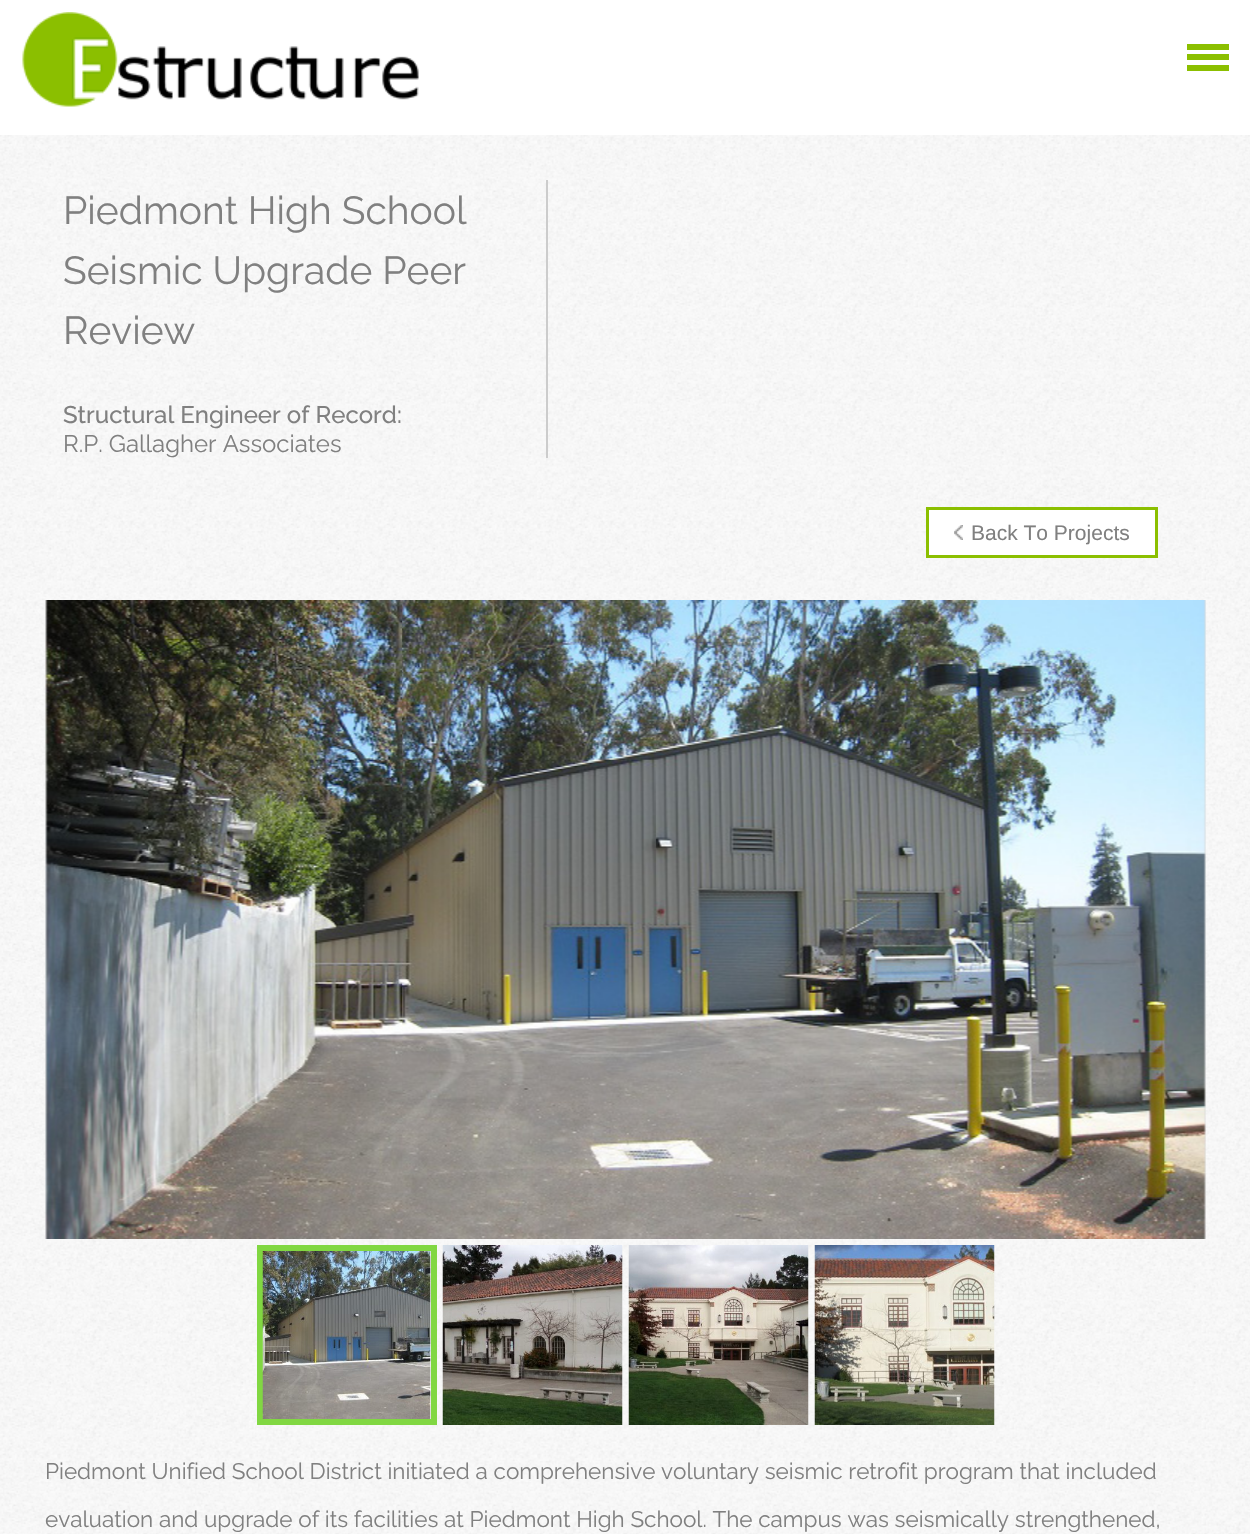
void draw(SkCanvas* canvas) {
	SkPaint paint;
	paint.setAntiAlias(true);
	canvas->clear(0xffffffff);
	canvas->drawImageRect(SkImages::DeferredFromEncodedData(SkData::MakeFromFileName("img1.png")), SkRect::MakeXYWH(0, 135, 1250, 1399), SkSamplingOptions());
	canvas->drawImageRect(SkImages::DeferredFromEncodedData(SkData::MakeFromFileName("img2.png")), SkRect::MakeXYWH(22, 12, 397, 95), SkSamplingOptions());
	paint.setColor(0xff8bbf00);
	canvas->drawRect(SkRect::MakeXYWH(1187, 44, 42, 6), paint);
	canvas->drawRect(SkRect::MakeXYWH(1187, 54, 42, 6), paint);
	canvas->drawRect(SkRect::MakeXYWH(1187, 65, 42, 6), paint);
	paint.setColor(0xffcccccc);
	canvas->drawRect(SkRect::MakeXYWH(546, 180, 2, 278), paint);
	SkFont f1(fontMgr->matchFamilyStyle("Raleway", SkFontStyle::Normal()), 39);
	f1.setSubpixel(true);
	paint.setColor(0xff808080);
	canvas->drawString("Piedmont High School", 63, 224, f1, paint);
	canvas->drawString("Seismic Upgrade Peer", 63, 284, f1, paint);
	canvas->drawString("Review", 63, 344, f1, paint);
	SkFont f2(fontMgr->matchFamilyStyle("Raleway", SkFontStyle(500, SkFontStyle::kNormal_Width, SkFontStyle::kUpright_Slant)), 24);
	f2.setSubpixel(true);
	canvas->drawString("Structural Engineer of Record:", 63, 423, f2, paint);
	SkFont f3(fontMgr->matchFamilyStyle("Raleway", SkFontStyle::Normal()), 24);
	f3.setSubpixel(true);
	canvas->drawString("R.P. Gallagher Associates", 63, 452, f3, paint);
	paint.setColor(0xffffffff);
	canvas->drawRect(SkRect::MakeXYWH(927.5, 508.5, 229, 48), paint);
	paint.setStroke(true);
	paint.setStrokeWidth(3);
	paint.setColor(0xff8bbf00);
	canvas->drawRect(SkRect::MakeXYWH(927.5, 508.5, 229, 48), paint);
	canvas->drawImageRect(SkImages::DeferredFromEncodedData(SkData::MakeFromFileName("img3.png")), SkRect::MakeXYWH(954, 525, 9, 15), SkSamplingOptions());
	SkFont f4(fontMgr->matchFamilyStyle("Liberation Sans", SkFontStyle::Normal()), 21);
	f4.setSubpixel(true);
	paint.setStroke(false);
	paint.setColor(0xff808080);
	canvas->drawString("Back To Projects", 971, 540, f4, paint);
	canvas->drawImageRect(SkImages::DeferredFromEncodedData(SkData::MakeFromFileName("img4.png")), SkRect::MakeXYWH(45, 600, 1161, 639), SkSamplingOptions());
	paint.setStroke(true);
	paint.setStrokeWidth(6);
	paint.setColor(0xff81d742);
	canvas->drawRect(SkRect::MakeXYWH(260, 1248, 174, 174), paint);
	canvas->drawImageRect(SkImages::DeferredFromEncodedData(SkData::MakeFromFileName("img5.png")), SkRect::MakeXYWH(262, 1251, 169, 168), SkSamplingOptions());
	canvas->drawImageRect(SkImages::DeferredFromEncodedData(SkData::MakeFromFileName("img6.png")), SkRect::MakeXYWH(442, 1245, 181, 180), SkSamplingOptions());
	canvas->drawImageRect(SkImages::DeferredFromEncodedData(SkData::MakeFromFileName("img7.png")), SkRect::MakeXYWH(628, 1245, 181, 180), SkSamplingOptions());
	canvas->drawImageRect(SkImages::DeferredFromEncodedData(SkData::MakeFromFileName("img8.png")), SkRect::MakeXYWH(814, 1245, 181, 180), SkSamplingOptions());
	SkFont f5(fontMgr->matchFamilyStyle("Raleway", SkFontStyle::Normal()), 22.5);
	f5.setSubpixel(true);
	paint.setStroke(false);
	paint.setColor(0xff808080);
	canvas->drawString("Piedmont Unified School District initiated a comprehensive voluntary seismic retrofit program that included", 45, 1479, f5, paint);
	canvas->drawString("evaluation and upgrade of its facilities at Piedmont High School. The campus was seismically strengthened,", 45, 1527, f5, paint);
}
